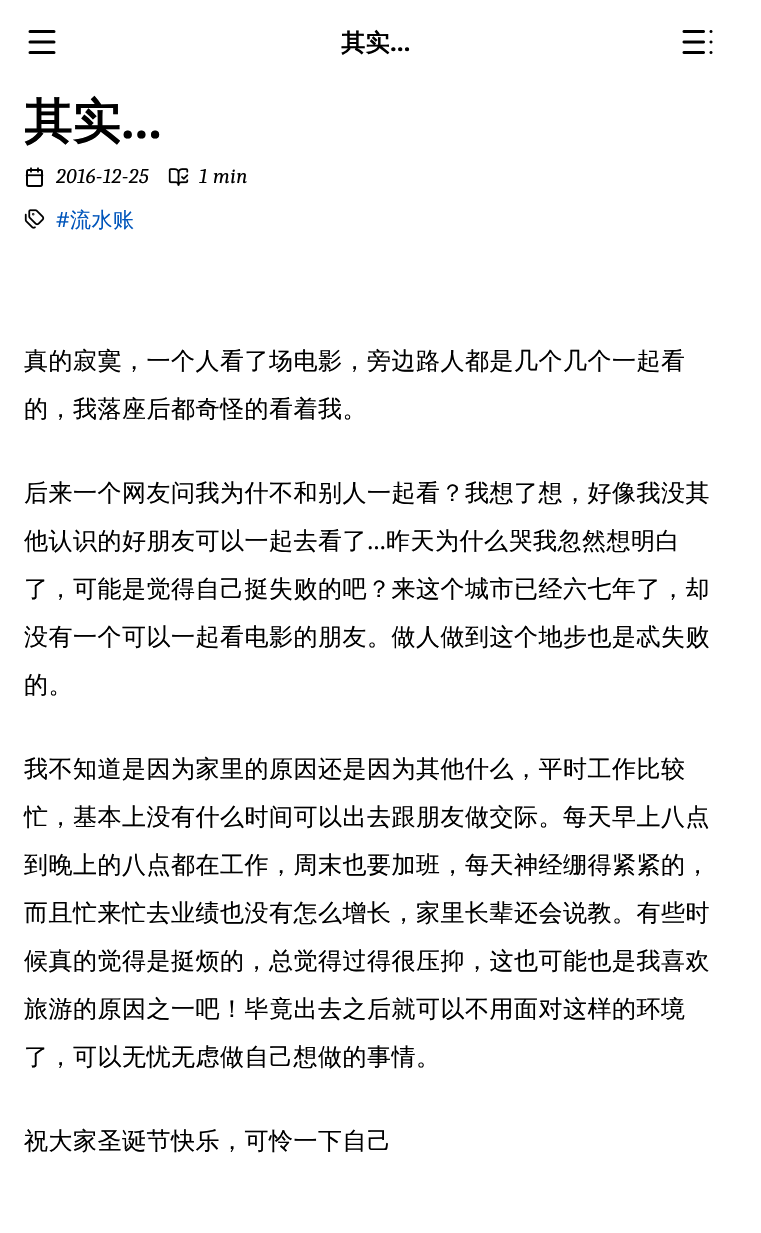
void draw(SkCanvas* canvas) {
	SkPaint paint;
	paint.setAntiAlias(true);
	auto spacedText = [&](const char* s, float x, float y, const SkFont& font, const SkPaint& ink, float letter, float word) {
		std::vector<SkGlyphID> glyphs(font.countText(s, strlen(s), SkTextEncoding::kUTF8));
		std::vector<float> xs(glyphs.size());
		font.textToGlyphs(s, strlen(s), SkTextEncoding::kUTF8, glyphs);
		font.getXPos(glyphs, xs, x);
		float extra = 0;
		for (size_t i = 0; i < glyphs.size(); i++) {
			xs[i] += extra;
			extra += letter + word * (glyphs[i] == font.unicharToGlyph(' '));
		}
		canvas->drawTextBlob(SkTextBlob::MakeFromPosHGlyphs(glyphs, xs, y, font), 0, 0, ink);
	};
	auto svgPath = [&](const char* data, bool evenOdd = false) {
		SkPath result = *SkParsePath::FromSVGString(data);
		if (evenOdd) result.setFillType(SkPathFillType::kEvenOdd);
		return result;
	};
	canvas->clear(0xffffffff);
	paint.setStroke(true);
	paint.setStrokeWidth(3);
	paint.setStrokeCap(SkPaint::kRound_Cap);
	paint.setStrokeJoin(SkPaint::kRound_Join);
	paint.setColor(0xff000000);
	canvas->drawPath(svgPath("M30 31.5H54M30 42H54M30 52.5H54"), paint);
	SkFont f1(fontMgr->matchFamilyStyle("WenQuanYi Zen Hei", SkFontStyle::Bold()), 24);
	f1.setSubpixel(true);
	paint.setStroke(false);
	spacedText("其实", 341, 51, f1, paint, 0.5, 0);
	SkFont f2(fontMgr->matchFamilyStyle("Noto Sans", SkFontStyle::Bold()), 24);
	f2.setSubpixel(true);
	spacedText("…", 390, 51, f2, paint, 0.5, 0);
	canvas->drawImageRect(SkImages::DeferredFromEncodedData(SkData::MakeFromFileName("img1.png")), SkRect::MakeXYWH(682, 30, 31, 24), SkSamplingOptions());
	SkFont f3(fontMgr->matchFamilyStyle("WenQuanYi Zen Hei", SkFontStyle::Bold()), 48);
	f3.setSubpixel(true);
	spacedText("其实", 24, 138, f3, paint, 0.5, 0);
	SkFont f4(fontMgr->matchFamilyStyle("Noto Sans", SkFontStyle::Bold()), 48);
	f4.setSubpixel(true);
	spacedText("…", 121, 138, f4, paint, 0.5, 0);
	canvas->drawImageRect(SkImages::DeferredFromEncodedData(SkData::MakeFromFileName("img2.png")), SkRect::MakeXYWH(25, 167, 19, 20), SkSamplingOptions());
	SkFont f5(fontMgr->matchFamilyStyle("Caladea", SkFontStyle::Italic()), 21);
	f5.setSubpixel(true);
	spacedText("2016-12-25", 56, 183, f5, paint, 0.5, 0);
	canvas->drawImageRect(SkImages::DeferredFromEncodedData(SkData::MakeFromFileName("img3.png")), SkRect::MakeXYWH(168, 168, 21, 18), SkSamplingOptions());
	spacedText("1 min", 199, 183, f5, paint, 0.5, 0);
	canvas->drawImageRect(SkImages::DeferredFromEncodedData(SkData::MakeFromFileName("img4.png")), SkRect::MakeXYWH(24, 209, 21, 20), SkSamplingOptions());
	SkFont f6(fontMgr->matchFamilyStyle("Noto Sans", SkFontStyle::Normal()), 21);
	f6.setSubpixel(true);
	paint.setColor(0xff0055bb);
	spacedText("#", 56, 227, f6, paint, 0.5, 0);
	SkFont f7(fontMgr->matchFamilyStyle("WenQuanYi Zen Hei", SkFontStyle(500, SkFontStyle::kNormal_Width, SkFontStyle::kUpright_Slant)), 21);
	f7.setSubpixel(true);
	spacedText("流水账", 70, 227, f7, paint, 0.5, 0);
	SkFont f8(fontMgr->matchFamilyStyle("WenQuanYi Zen Hei", SkFontStyle(500, SkFontStyle::kNormal_Width, SkFontStyle::kUpright_Slant)), 24);
	f8.setSubpixel(true);
	paint.setColor(0xff000000);
	spacedText("真的寂寞，一个人看了场电影，旁边路人都是几个几个一起看", 24, 369, f8, paint, 0.5, 0);
	spacedText("的，我落座后都奇怪的看着我。", 24, 417, f8, paint, 0.5, 0);
	spacedText("后来一个网友问我为什不和别人一起看？我想了想，好像我没其", 24, 501, f8, paint, 0.5, 0);
	spacedText("他认识的好朋友可以一起去看了", 24, 549, f8, paint, 0.5, 0);
	SkFont f9(fontMgr->matchFamilyStyle("Noto Sans", SkFontStyle::Normal()), 24);
	f9.setSubpixel(true);
	spacedText("…", 367, 549, f9, paint, 0.5, 0);
	spacedText("昨天为什么哭我忽然想明白", 386, 549, f8, paint, 0.5, 0);
	spacedText("了，可能是觉得自己挺失败的吧？来这个城市已经六七年了，却", 24, 597, f8, paint, 0.5, 0);
	spacedText("没有一个可以一起看电影的朋友。做人做到这个地步也是忒失败", 24, 645, f8, paint, 0.5, 0);
	spacedText("的。", 24, 693, f8, paint, 0.5, 0);
	spacedText("我不知道是因为家里的原因还是因为其他什么，平时工作比较", 24, 777, f8, paint, 0.5, 0);
	spacedText("忙，基本上没有什么时间可以出去跟朋友做交际。每天早上八点", 24, 825, f8, paint, 0.5, 0);
	spacedText("到晚上的八点都在工作，周末也要加班，每天神经绷得紧紧的，", 24, 873, f8, paint, 0.5, 0);
	spacedText("而且忙来忙去业绩也没有怎么增长，家里长辈还会说教。有些时", 24, 921, f8, paint, 0.5, 0);
	spacedText("候真的觉得是挺烦的，总觉得过得很压抑，这也可能也是我喜欢", 24, 969, f8, paint, 0.5, 0);
	spacedText("旅游的原因之一吧！毕竟出去之后就可以不用面对这样的环境", 24, 1017, f8, paint, 0.5, 0);
	spacedText("了，可以无忧无虑做自己想做的事情。", 24, 1065, f8, paint, 0.5, 0);
	spacedText("祝大家圣诞节快乐，可怜一下自己", 24, 1149, f8, paint, 0.5, 0);
}
